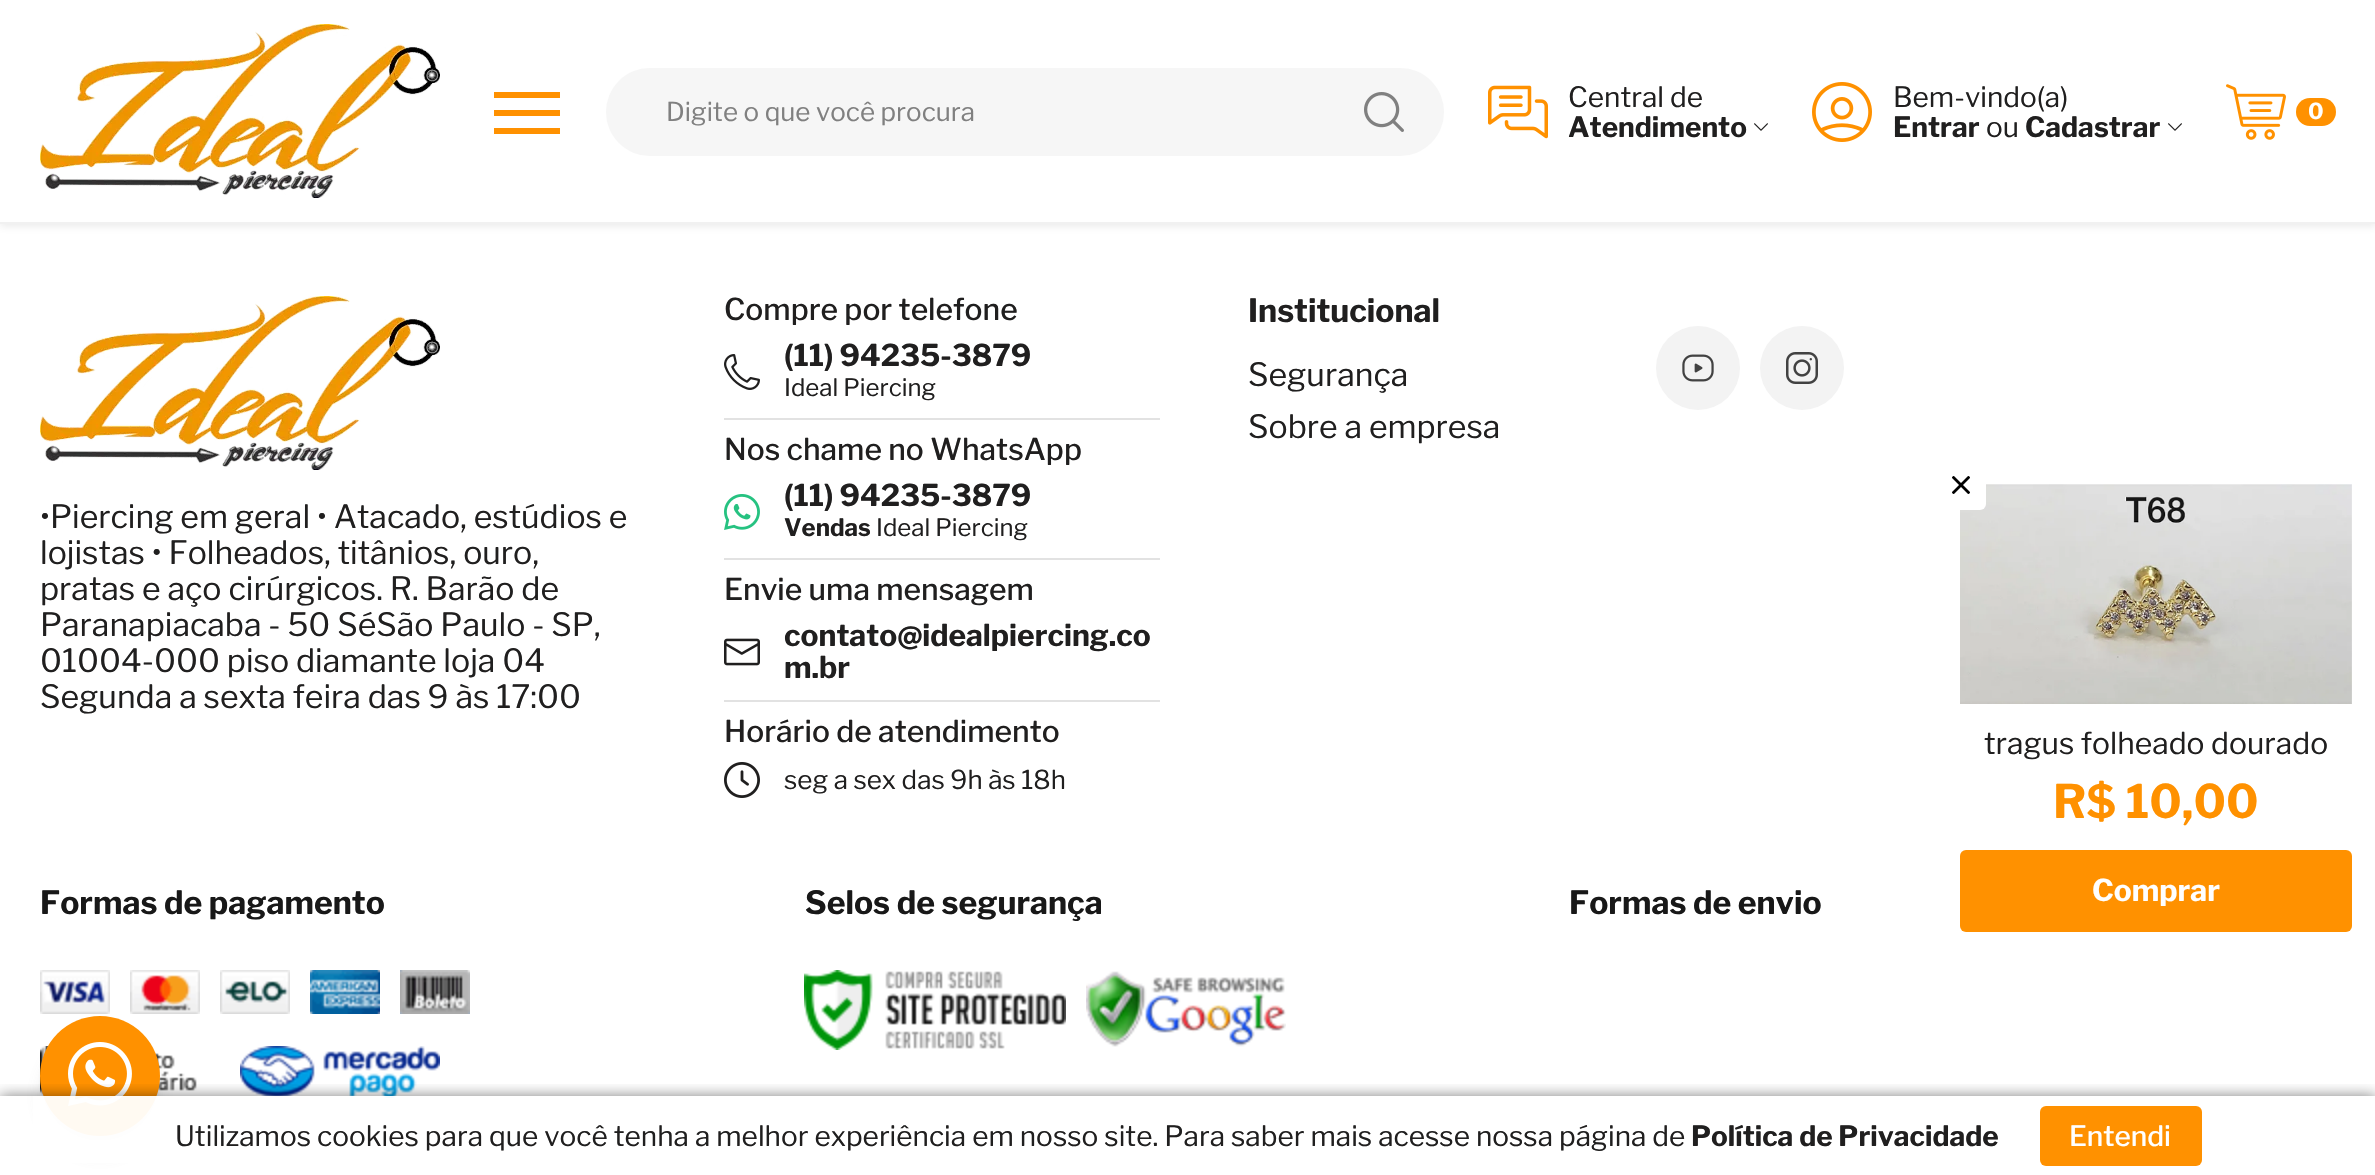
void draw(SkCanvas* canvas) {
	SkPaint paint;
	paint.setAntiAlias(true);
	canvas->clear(0xffffffff);
	paint.setColor(0x21525252);
	paint.setMaskFilter(SkMaskFilter::MakeBlur(kNormal_SkBlurStyle, 4));
	canvas->drawRect(SkRect::MakeXYWH(0, 2, 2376, 224), paint);
	paint.setMaskFilter(nullptr);
	paint.setColor(0xffffffff);
	canvas->drawRect(SkRect::MakeXYWH(0, 0, 2375, 222), paint);
	paint.setColor(0xfff1f1f1);
	canvas->drawRect(SkRect::MakeXYWH(0, 222, 2375, 2), paint);
	canvas->drawImageRect(SkImages::DeferredFromEncodedData(SkData::MakeFromFileName("img1.png")), SkRect::MakeXYWH(40, 24, 400, 174), SkSamplingOptions());
	paint.setColor(0xffff9100);
	canvas->drawRect(SkRect::MakeXYWH(494, 128, 66, 6), paint);
	canvas->drawRect(SkRect::MakeXYWH(494, 92, 66, 6), paint);
	canvas->drawRect(SkRect::MakeXYWH(494, 110, 66, 6), paint);
	paint.setColor(0xfff6f6f6);
	canvas->drawRoundRect(SkRect::MakeXYWH(606, 68, 838, 88), 44, 44, paint);
	SkFont f1(fontMgr->matchFamilyStyle("Libre Franklin", SkFontStyle::Normal()), 26);
	f1.setSubpixel(true);
	paint.setColor(0xff808080);
	canvas->drawString("Digite o que você procura", 666, 121, f1, paint);
	canvas->drawImageRect(SkImages::DeferredFromEncodedData(SkData::MakeFromFileName("img2.png")), SkRect::MakeXYWH(1364, 92, 40, 40), SkSamplingOptions());
	canvas->drawImageRect(SkImages::DeferredFromEncodedData(SkData::MakeFromFileName("img3.png")), SkRect::MakeXYWH(1488, 85, 60, 54), SkSamplingOptions());
	SkFont f2(fontMgr->matchFamilyStyle("Libre Franklin", SkFontStyle::Normal()), 28);
	f2.setSubpixel(true);
	paint.setColor(0xff201f1f);
	canvas->drawString("Central de", 1568, 107, f2, paint);
	SkFont f3(fontMgr->matchFamilyStyle("Libre Franklin", SkFontStyle::Bold()), 28);
	f3.setSubpixel(true);
	canvas->drawString("Atendimento", 1568, 137, f3, paint);
	canvas->drawImageRect(SkImages::DeferredFromEncodedData(SkData::MakeFromFileName("img4.png")), SkRect::MakeXYWH(1754, 123, 14, 8), SkSamplingOptions());
	canvas->drawImageRect(SkImages::DeferredFromEncodedData(SkData::MakeFromFileName("img5.png")), SkRect::MakeXYWH(1812, 82, 60, 60), SkSamplingOptions());
	canvas->drawString("Bem-vindo(a)", 1893, 107, f2, paint);
	canvas->drawString("Entrar", 1893, 137, f3, paint);
	canvas->drawString("ou", 1986, 137, f2, paint);
	canvas->drawString("Cadastrar", 2025, 137, f3, paint);
	canvas->drawImageRect(SkImages::DeferredFromEncodedData(SkData::MakeFromFileName("img4.png")), SkRect::MakeXYWH(2168, 123, 14, 8), SkSamplingOptions());
	canvas->drawImageRect(SkImages::DeferredFromEncodedData(SkData::MakeFromFileName("img6.png")), SkRect::MakeXYWH(2226, 84, 60, 56), SkSamplingOptions());
	paint.setColor(0xffff9100);
	canvas->drawRoundRect(SkRect::MakeXYWH(2296, 98, 40, 28), 14, 14, paint);
	SkFont f4(fontMgr->matchFamilyStyle("Libre Franklin", SkFontStyle::Bold()), 22);
	f4.setSubpixel(true);
	paint.setColor(0xffffffff);
	canvas->drawString("0", 2308, 119, f4, paint);
	paint.setColor(0xffe2e2e2);
	canvas->drawRect(SkRect::MakeXYWH(724, 418, 436, 2), paint);
	SkFont f5(fontMgr->matchFamilyStyle("Libre Franklin", SkFontStyle(500, SkFontStyle::kNormal_Width, SkFontStyle::kUpright_Slant)), 30);
	f5.setSubpixel(true);
	paint.setColor(0xff201f1f);
	canvas->drawString("Compre por telefone", 724, 320, f5, paint);
	canvas->drawImageRect(SkImages::DeferredFromEncodedData(SkData::MakeFromFileName("img7.png")), SkRect::MakeXYWH(724, 354, 36, 36), SkSamplingOptions());
	SkFont f6(fontMgr->matchFamilyStyle("Libre Franklin", SkFontStyle::Bold()), 30);
	f6.setSubpixel(true);
	canvas->drawString("(11) 94235-3879", 784, 366, f6, paint);
	SkFont f7(fontMgr->matchFamilyStyle("Libre Franklin", SkFontStyle::Normal()), 24);
	f7.setSubpixel(true);
	canvas->drawString("Ideal Piercing", 784, 396, f7, paint);
	paint.setColor(0xffe2e2e2);
	canvas->drawRect(SkRect::MakeXYWH(724, 558, 436, 2), paint);
	paint.setColor(0xff201f1f);
	canvas->drawString("Nos chame no WhatsApp", 724, 460, f5, paint);
	canvas->drawImageRect(SkImages::DeferredFromEncodedData(SkData::MakeFromFileName("img8.png")), SkRect::MakeXYWH(724, 494, 36, 36), SkSamplingOptions());
	canvas->drawString("(11) 94235-3879", 784, 506, f6, paint);
	SkFont f8(fontMgr->matchFamilyStyle("Libre Franklin", SkFontStyle::Bold()), 24);
	f8.setSubpixel(true);
	canvas->drawString("Vendas", 784, 536, f8, paint);
	canvas->drawString("Ideal Piercing", 876, 536, f7, paint);
	paint.setColor(0xffe2e2e2);
	canvas->drawRect(SkRect::MakeXYWH(724, 700, 436, 2), paint);
	paint.setColor(0xff201f1f);
	canvas->drawString("Envie uma mensagem", 724, 600, f5, paint);
	canvas->drawImageRect(SkImages::DeferredFromEncodedData(SkData::MakeFromFileName("img9.png")), SkRect::MakeXYWH(724, 638, 36, 28), SkSamplingOptions());
	canvas->drawString("contato@idealpiercing.co", 784, 646, f6, paint);
	canvas->drawString("m.br", 784, 678, f6, paint);
	canvas->drawString("Horário de atendimento", 724, 742, f5, paint);
	canvas->drawImageRect(SkImages::DeferredFromEncodedData(SkData::MakeFromFileName("img10.png")), SkRect::MakeXYWH(724, 762, 36, 36), SkSamplingOptions());
	canvas->drawString("seg a sex das 9h às 18h", 784, 789, f1, paint);
	SkFont f9(fontMgr->matchFamilyStyle("Libre Franklin", SkFontStyle::Bold()), 32);
	f9.setSubpixel(true);
	canvas->drawString("Institucional", 1248, 322, f9, paint);
	SkFont f10(fontMgr->matchFamilyStyle("Libre Franklin", SkFontStyle::Normal()), 32);
	f10.setSubpixel(true);
	canvas->drawString("Segurança", 1248, 386, f10, paint);
	canvas->drawString("Sobre a empresa", 1248, 438, f10, paint);
	paint.setColor(0xfff3f3f3);
	canvas->drawCircle(1698, 368, 42, paint);
	canvas->drawImageRect(SkImages::DeferredFromEncodedData(SkData::MakeFromFileName("img11.png")), SkRect::MakeXYWH(1682, 354, 32, 28), SkSamplingOptions());
	canvas->drawCircle(1802, 368, 42, paint);
	canvas->drawImageRect(SkImages::DeferredFromEncodedData(SkData::MakeFromFileName("img12.png")), SkRect::MakeXYWH(1786, 352, 32, 32), SkSamplingOptions());
	canvas->drawImageRect(SkImages::DeferredFromEncodedData(SkData::MakeFromFileName("img1.png")), SkRect::MakeXYWH(40, 296, 400, 174), SkSamplingOptions());
	paint.setColor(0xff201f1f);
	canvas->drawString("•Piercing em geral • Atacado, estúdios e", 40, 528, f10, paint);
	canvas->drawString("lojistas • Folheados, titânios, ouro,", 40, 564, f10, paint);
	canvas->drawString("pratas e aço cirúrgicos. R. Barão de", 40, 600, f10, paint);
	canvas->drawString("Paranapiacaba - 50 SéSão Paulo - SP,", 40, 636, f10, paint);
	canvas->drawString("01004-000 piso diamante loja 04", 40, 672, f10, paint);
	canvas->drawString("Segunda a sexta feira das 9 às 17:00", 40, 708, f10, paint);
	paint.setColor(0xff181818);
	canvas->drawString("Formas de pagamento", 40, 914, f9, paint);
	canvas->drawImageRect(SkImages::DeferredFromEncodedData(SkData::MakeFromFileName("img13.png")), SkRect::MakeXYWH(40, 970, 70, 44), SkSamplingOptions());
	canvas->drawImageRect(SkImages::DeferredFromEncodedData(SkData::MakeFromFileName("img14.png")), SkRect::MakeXYWH(130, 970, 70, 44), SkSamplingOptions());
	canvas->drawImageRect(SkImages::DeferredFromEncodedData(SkData::MakeFromFileName("img15.png")), SkRect::MakeXYWH(220, 970, 70, 44), SkSamplingOptions());
	canvas->drawImageRect(SkImages::DeferredFromEncodedData(SkData::MakeFromFileName("img16.png")), SkRect::MakeXYWH(310, 970, 70, 44), SkSamplingOptions());
	canvas->drawImageRect(SkImages::DeferredFromEncodedData(SkData::MakeFromFileName("img17.png")), SkRect::MakeXYWH(400, 970, 70, 44), SkSamplingOptions());
	canvas->drawImageRect(SkImages::DeferredFromEncodedData(SkData::MakeFromFileName("img18.png")), SkRect::MakeXYWH(40, 1046, 157, 50), SkSamplingOptions());
	canvas->drawImageRect(SkImages::DeferredFromEncodedData(SkData::MakeFromFileName("img19.png")), SkRect::MakeXYWH(240, 1046, 200, 52), SkSamplingOptions());
	canvas->drawString("Selos de segurança", 805, 914, f9, paint);
	canvas->drawImageRect(SkImages::DeferredFromEncodedData(SkData::MakeFromFileName("img20.png")), SkRect::MakeXYWH(804, 970, 262, 80), SkSamplingOptions());
	canvas->drawImageRect(SkImages::DeferredFromEncodedData(SkData::MakeFromFileName("img21.png")), SkRect::MakeXYWH(1086, 971, 200, 76), SkSamplingOptions());
	canvas->drawString("Formas de envio", 1569, 914, f9, paint);
	canvas->drawImageRect(SkImages::DeferredFromEncodedData(SkData::MakeFromFileName("img23.png")), SkRect::MakeXYWH(1960, 484, 392, 220), SkSamplingOptions());
	paint.setColor(0xffffffff);
	canvas->drawRoundRect(SkRect::MakeXYWH(1936, 460, 50, 50), 6, 6, paint);
	canvas->drawImageRect(SkImages::DeferredFromEncodedData(SkData::MakeFromFileName("img22.png")), SkRect::MakeXYWH(1952, 476, 18, 18), SkSamplingOptions());
	SkFont f11(fontMgr->matchFamilyStyle("Libre Franklin", SkFontStyle::Normal()), 30);
	f11.setSubpixel(true);
	paint.setColor(0xff201f1f);
	canvas->drawString("tragus folheado dourado", 1984, 754, f11, paint);
	SkFont f12(fontMgr->matchFamilyStyle("Libre Franklin", SkFontStyle::Bold()), 46);
	f12.setSubpixel(true);
	paint.setColor(0xffff9100);
	canvas->drawString("R$ 10,00", 2053, 818, f12, paint);
	canvas->drawRoundRect(SkRect::MakeXYWH(1960, 850, 392, 82), 6, 6, paint);
	paint.setColor(0xffffffff);
	canvas->drawString("Comprar", 2092, 901, f6, paint);
	paint.setColor(0x1a676767);
	paint.setMaskFilter(SkMaskFilter::MakeBlur(kNormal_SkBlurStyle, 8));
	canvas->drawRoundRect(SkRect::MakeXYWH(40, 1036, 120, 120), 60, 60, paint);
	paint.setMaskFilter(nullptr);
	paint.setColor(0x0a000000);
	paint.setMaskFilter(SkMaskFilter::MakeBlur(kNormal_SkBlurStyle, 1));
	canvas->drawRoundRect(SkRect::MakeXYWH(40, 1020, 120, 120), 60, 60, paint);
	paint.setMaskFilter(nullptr);
	paint.setColor(0xffff9100);
	canvas->drawCircle(100, 1076, 60, paint);
	canvas->drawImageRect(SkImages::DeferredFromEncodedData(SkData::MakeFromFileName("img24.png")), SkRect::MakeXYWH(68, 1042, 64, 64), SkSamplingOptions());
	canvas->save();
	canvas->clipRect(SkRect::MakeXYWH(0, 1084, 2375, 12));
	paint.setColor(0x80000000);
	paint.setMaskFilter(SkMaskFilter::MakeBlur(kNormal_SkBlurStyle, 7));
	canvas->drawRect(SkRect::MakeXYWH(0, 1096, 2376, 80), paint);
	paint.setMaskFilter(nullptr);
	canvas->restore();
	paint.setColor(0xf2ffffff);
	canvas->drawRect(SkRect::MakeXYWH(33, 1096, 364, 67), paint);
	paint.setColor(0xff201f1f);
	canvas->drawString("Utilizamos cookies para que você tenha a melhor experiência em nosso site. Para saber mais acesse nossa página de", 175, 1146, f2, paint);
	canvas->drawString("Política de Privacidade", 1691, 1146, f3, paint);
	paint.setColor(0xffff9100);
	canvas->drawRoundRect(SkRect::MakeXYWH(2040, 1106, 162, 60), 6, 6, paint);
	SkFont f13(fontMgr->matchFamilyStyle("Libre Franklin", SkFontStyle(500, SkFontStyle::kNormal_Width, SkFontStyle::kUpright_Slant)), 28);
	f13.setSubpixel(true);
	paint.setColor(0xffffffff);
	canvas->drawString("Entendi", 2069, 1146, f13, paint);
}
